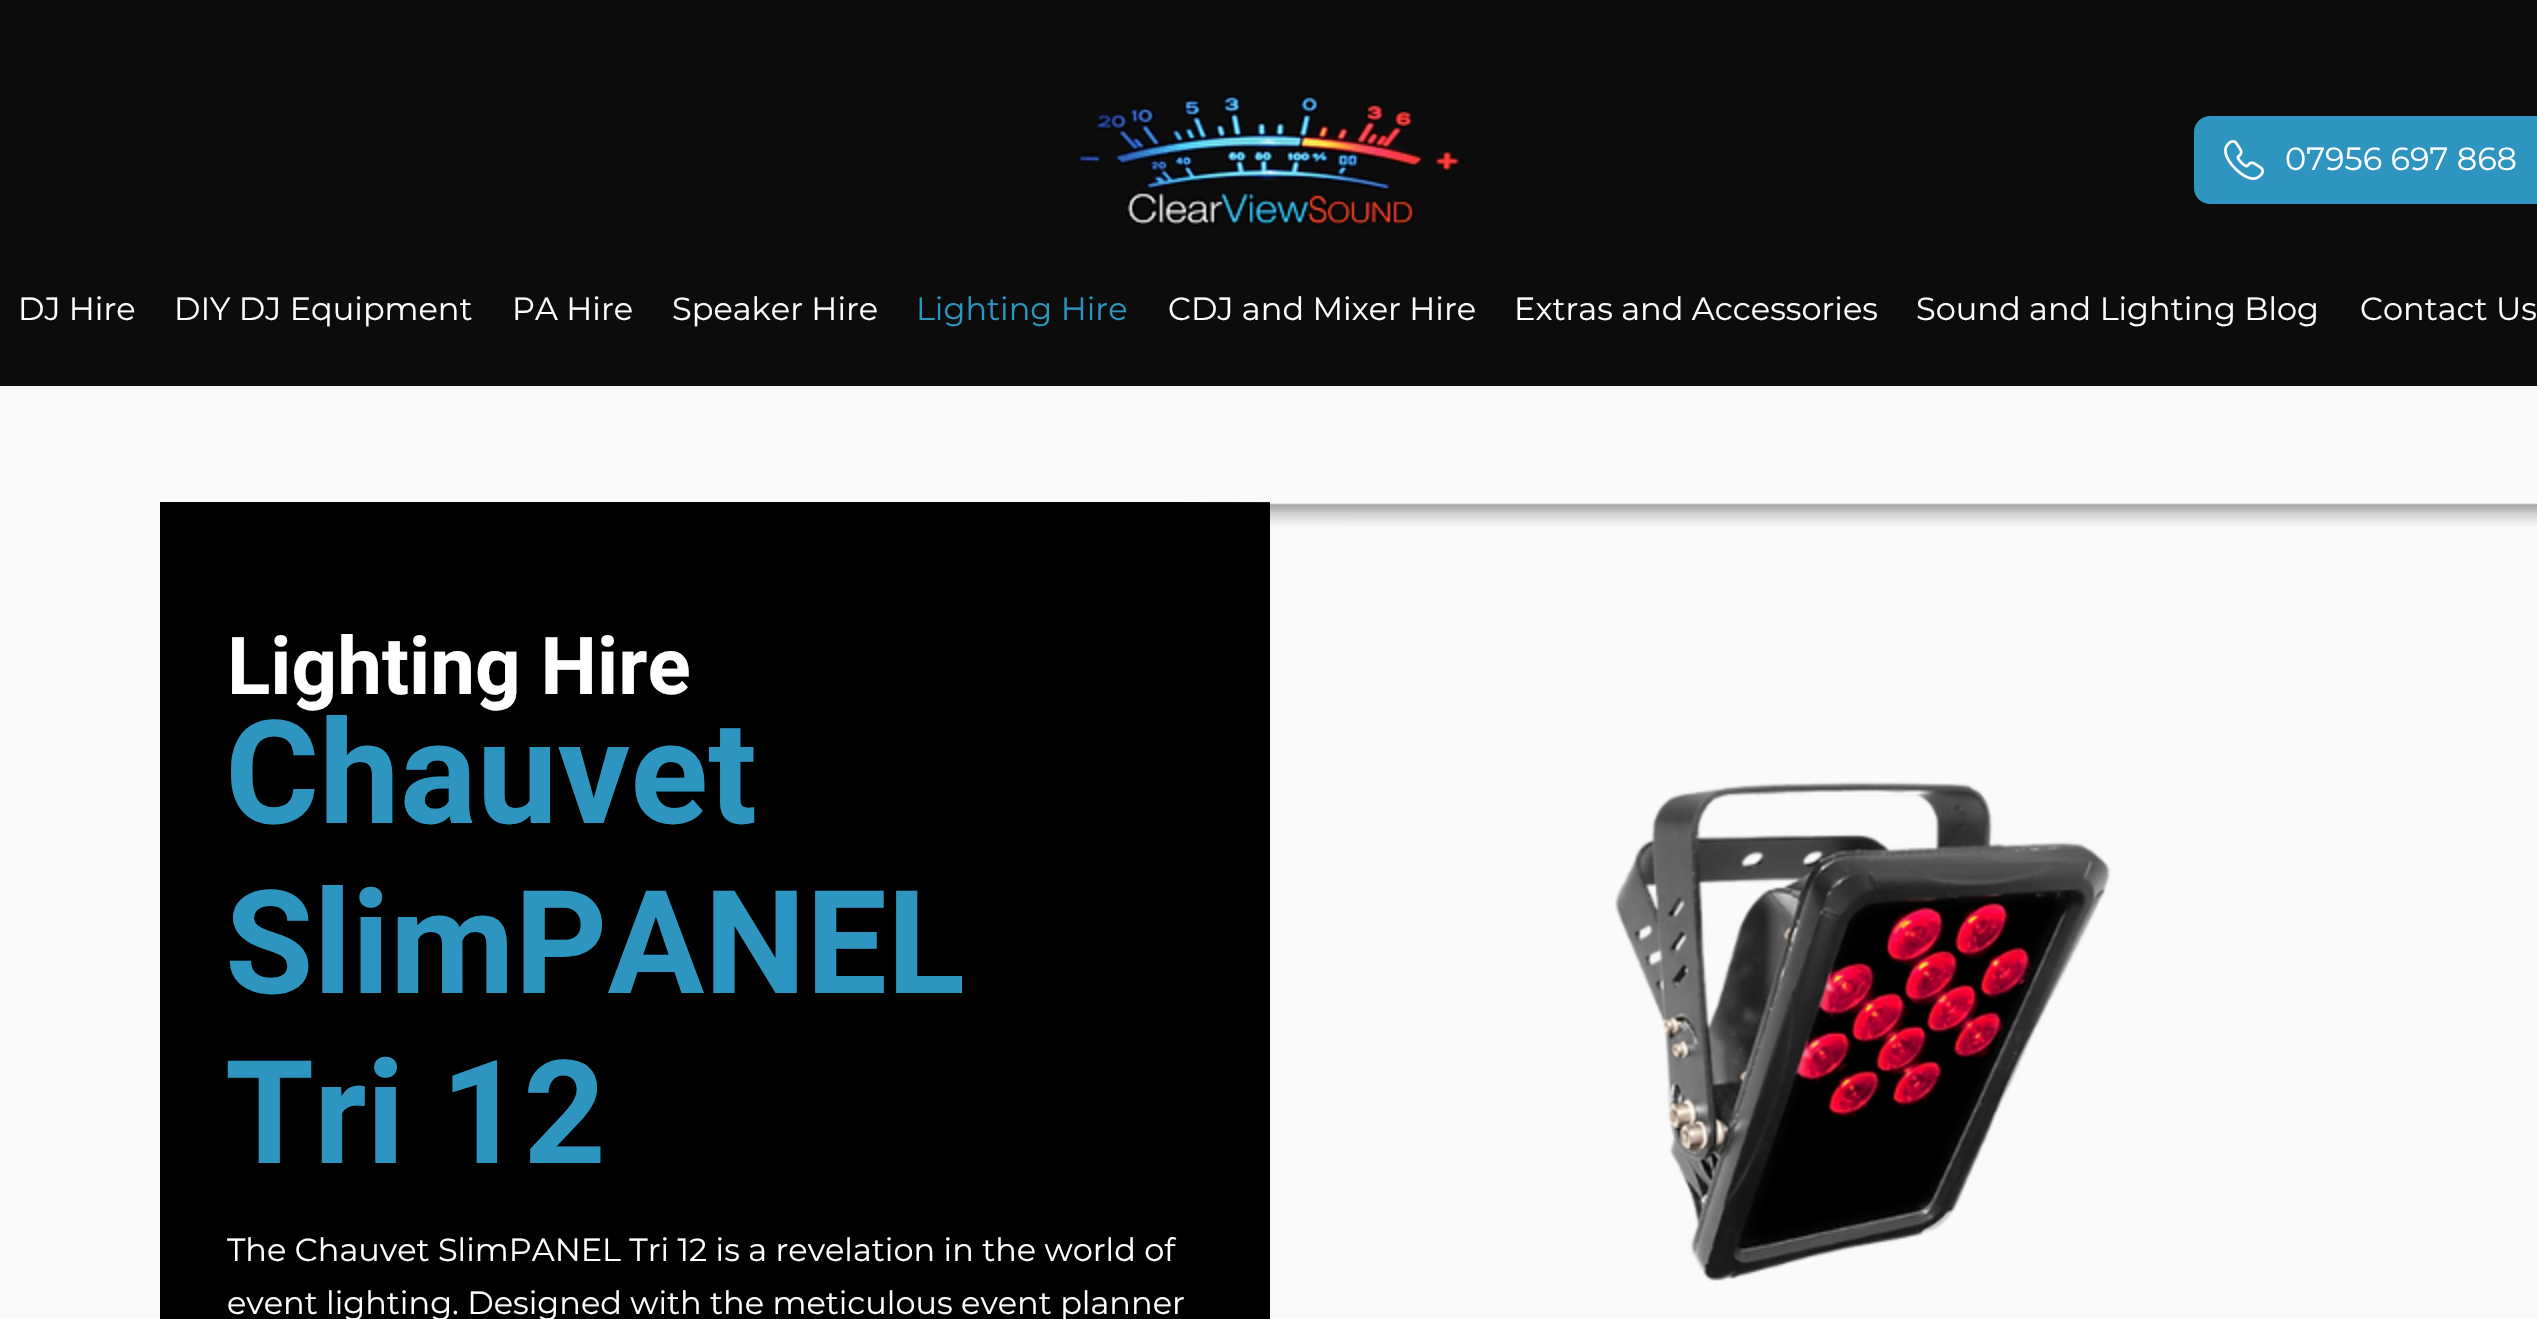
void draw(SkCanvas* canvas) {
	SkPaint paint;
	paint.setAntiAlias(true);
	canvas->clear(0xfffafafa);
	paint.setColor(0xff0c0c0c);
	canvas->drawRect(SkRect::MakeXYWH(0, 0, 2537, 386), paint);
	canvas->drawImageRect(SkImages::DeferredFromEncodedData(SkData::MakeFromFileName("img1.png")), SkRect::MakeXYWH(1078, 96, 382, 130), SkSamplingOptions());
	paint.setColor(0xff2d95bf);
	canvas->drawRoundRect(SkRect::MakeXYWH(2194, 116, 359, 88), 16, 16, paint);
	canvas->drawImageRect(SkImages::DeferredFromEncodedData(SkData::MakeFromFileName("img2.png")), SkRect::MakeXYWH(2224, 140, 40, 40), SkSamplingOptions());
	SkFont f1(fontMgr->matchFamilyStyle("Montserrat", SkFontStyle::Normal()), 32);
	f1.setSubpixel(true);
	paint.setColor(0xffffffff);
	canvas->drawString("07956 697 868", 2285, 170, f1, paint);
	canvas->drawString("DJ Hire", 18, 320, f1, paint);
	canvas->drawString("DIY DJ Equipment", 174, 320, f1, paint);
	canvas->drawString("PA Hire", 512, 320, f1, paint);
	canvas->drawString("Speaker Hire", 672, 320, f1, paint);
	paint.setColor(0xff2d95bf);
	canvas->drawString("Lighting Hire", 916, 320, f1, paint);
	paint.setColor(0xffffffff);
	canvas->drawString("CDJ and Mixer Hire", 1168, 320, f1, paint);
	canvas->drawString("Extras and Accessories", 1514, 320, f1, paint);
	canvas->drawString("Sound and Lighting Blog", 1916, 320, f1, paint);
	canvas->drawString("Contact Us", 2360, 320, f1, paint);
	paint.setColor(0xff000000);
	canvas->drawRect(SkRect::MakeXYWH(160, 502, 1110, 817), paint);
	SkFont f2(fontMgr->matchFamilyStyle("Roboto", SkFontStyle::Bold()), 80);
	f2.setSubpixel(true);
	paint.setColor(0xffffffff);
	canvas->drawString("Lighting Hire", 227, 694, f2, paint);
	SkFont f3(fontMgr->matchFamilyStyle("Roboto", SkFontStyle::Bold()), 144);
	f3.setSubpixel(true);
	paint.setColor(0xff2d95bf);
	canvas->drawString("Chauvet", 225, 823, f3, paint);
	canvas->drawString("SlimPANEL", 225, 993, f3, paint);
	canvas->drawString("Tri 12", 225, 1163, f3, paint);
	paint.setColor(0xffffffff);
	canvas->drawString("The Chauvet SlimPANEL Tri 12 is a revelation in the world of", 227, 1261, f1, paint);
	canvas->drawString("event lighting. Designed with the meticulous event planner", 227, 1314, f1, paint);
	canvas->drawImageRect(SkImages::DeferredFromEncodedData(SkData::MakeFromFileName("img3.png")), SkRect::MakeXYWH(1171, 502, 175, 24), SkSamplingOptions());
	canvas->drawImageRect(SkImages::DeferredFromEncodedData(SkData::MakeFromFileName("img4.png")), SkRect::MakeXYWH(1346, 503, 1191, 24), SkSamplingOptions());
	canvas->drawImageRect(SkImages::DeferredFromEncodedData(SkData::MakeFromFileName("img5.png")), SkRect::MakeXYWH(1615, 781, 496, 501), SkSamplingOptions());
}
